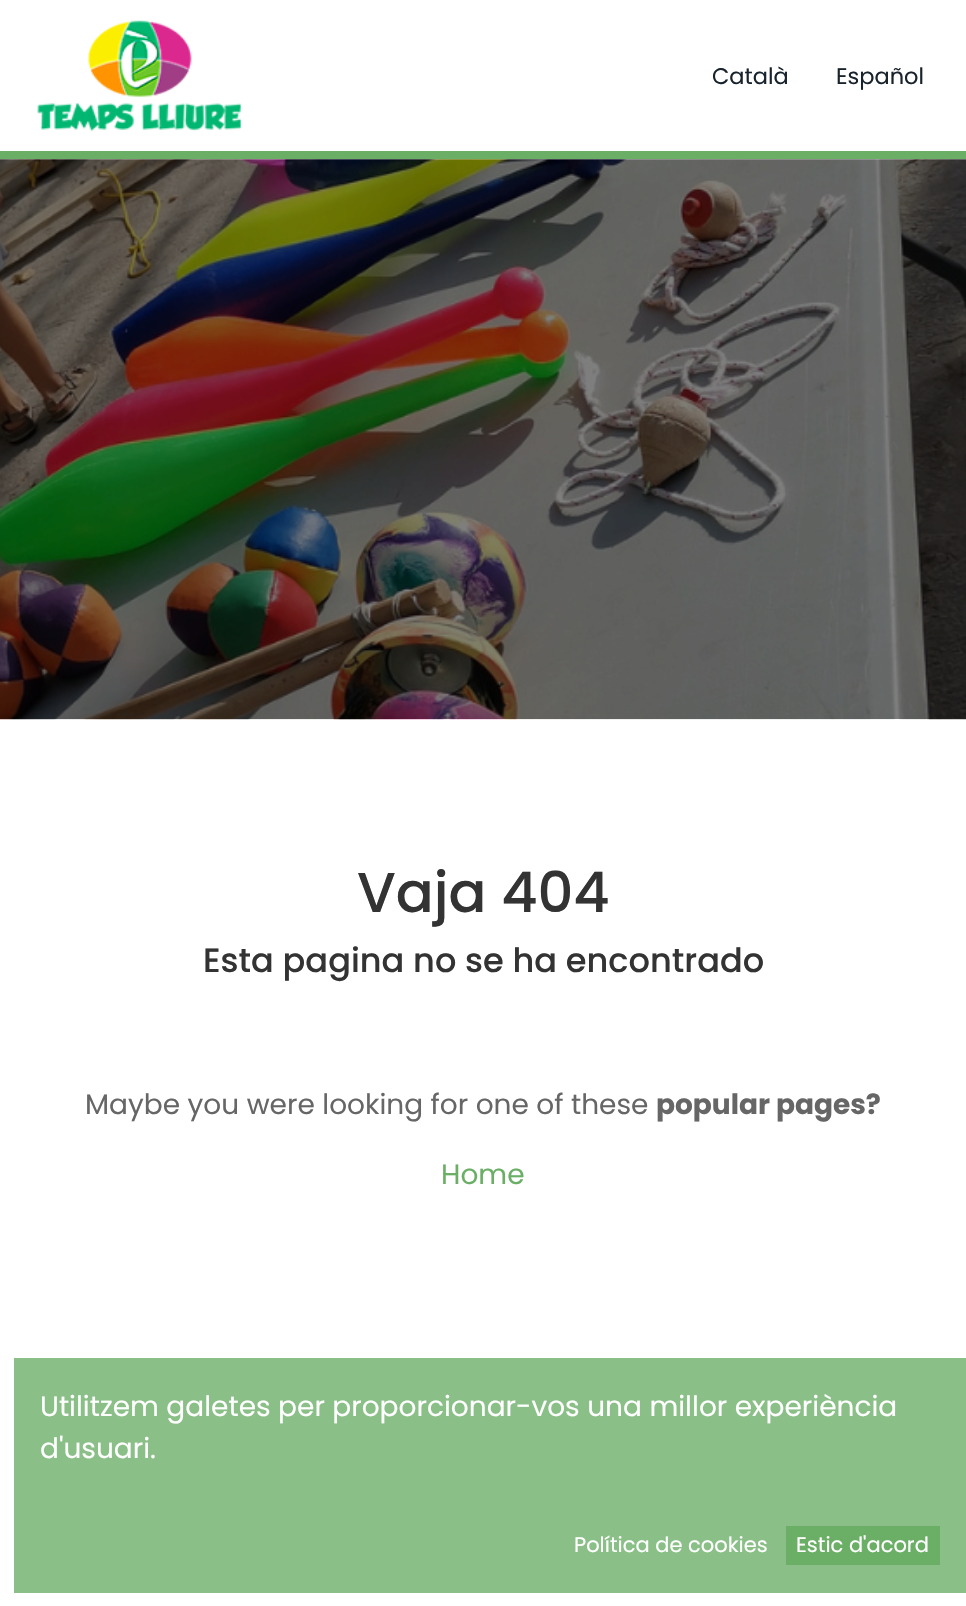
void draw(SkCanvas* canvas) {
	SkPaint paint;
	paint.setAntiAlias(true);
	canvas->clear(0xffffffff);
	paint.setColor(0xff6baf67);
	canvas->drawRect(SkRect::MakeXYWH(0, 151, 966, 8), paint);
	canvas->drawImageRect(SkImages::DeferredFromEncodedData(SkData::MakeFromFileName("img1.png")), SkRect::MakeXYWH(37, 20, 204, 112), SkSamplingOptions());
	SkFont f1(fontMgr->matchFamilyStyle("Poppins", SkFontStyle::Normal()), 22.5);
	f1.setSubpixel(true);
	paint.setColor(0xff19232d);
	canvas->drawString("Català", 712, 84, f1, paint);
	canvas->drawString("Español", 836, 84, f1, paint);
	canvas->drawImageRect(SkImages::DeferredFromEncodedData(SkData::MakeFromFileName("img2.png")), SkRect::MakeXYWH(0, 159, 966, 561), SkSamplingOptions());
	SkFont f2(fontMgr->matchFamilyStyle("Poppins", SkFontStyle(500, SkFontStyle::kNormal_Width, SkFontStyle::kUpright_Slant)), 56);
	f2.setSubpixel(true);
	paint.setColor(0xff333333);
	canvas->drawString("Vaja 404", 357, 912, f2, paint);
	SkFont f3(fontMgr->matchFamilyStyle("Poppins", SkFontStyle(500, SkFontStyle::kNormal_Width, SkFontStyle::kUpright_Slant)), 33.6);
	f3.setSubpixel(true);
	canvas->drawString("Esta pagina no se ha encontrado", 203, 972, f3, paint);
	SkFont f4(fontMgr->matchFamilyStyle("Poppins", SkFontStyle::Normal()), 28);
	f4.setSubpixel(true);
	paint.setColor(0xff666666);
	canvas->drawString("Maybe you were looking for one of these", 85, 1114, f4, paint);
	SkFont f5(fontMgr->matchFamilyStyle("Poppins", SkFontStyle::Bold()), 28);
	f5.setSubpixel(true);
	canvas->drawString("popular pages?", 656, 1114, f5, paint);
	paint.setColor(0xff6baf67);
	canvas->drawString("Home", 441, 1184, f4, paint);
	paint.setColor(0xc96baf67);
	canvas->drawRect(SkRect::MakeXYWH(14, 1358, 952, 235), paint);
	paint.setColor(0xffffffff);
	canvas->drawString("Utilitzem galetes per proporcionar-vos una millor experiència", 40, 1416, f4, paint);
	canvas->drawString("d'usuari.", 40, 1458, f4, paint);
	SkFont f6(fontMgr->matchFamilyStyle("Poppins", SkFontStyle::Normal()), 21);
	f6.setSubpixel(true);
	canvas->drawString("Política de cookies", 574, 1552, f6, paint);
	paint.setColor(0xff6baf67);
	canvas->drawRect(SkRect::MakeXYWH(786, 1526, 154, 39), paint);
	paint.setColor(0xffffffff);
	canvas->drawString("Estic d'acord", 796, 1552, f6, paint);
}
